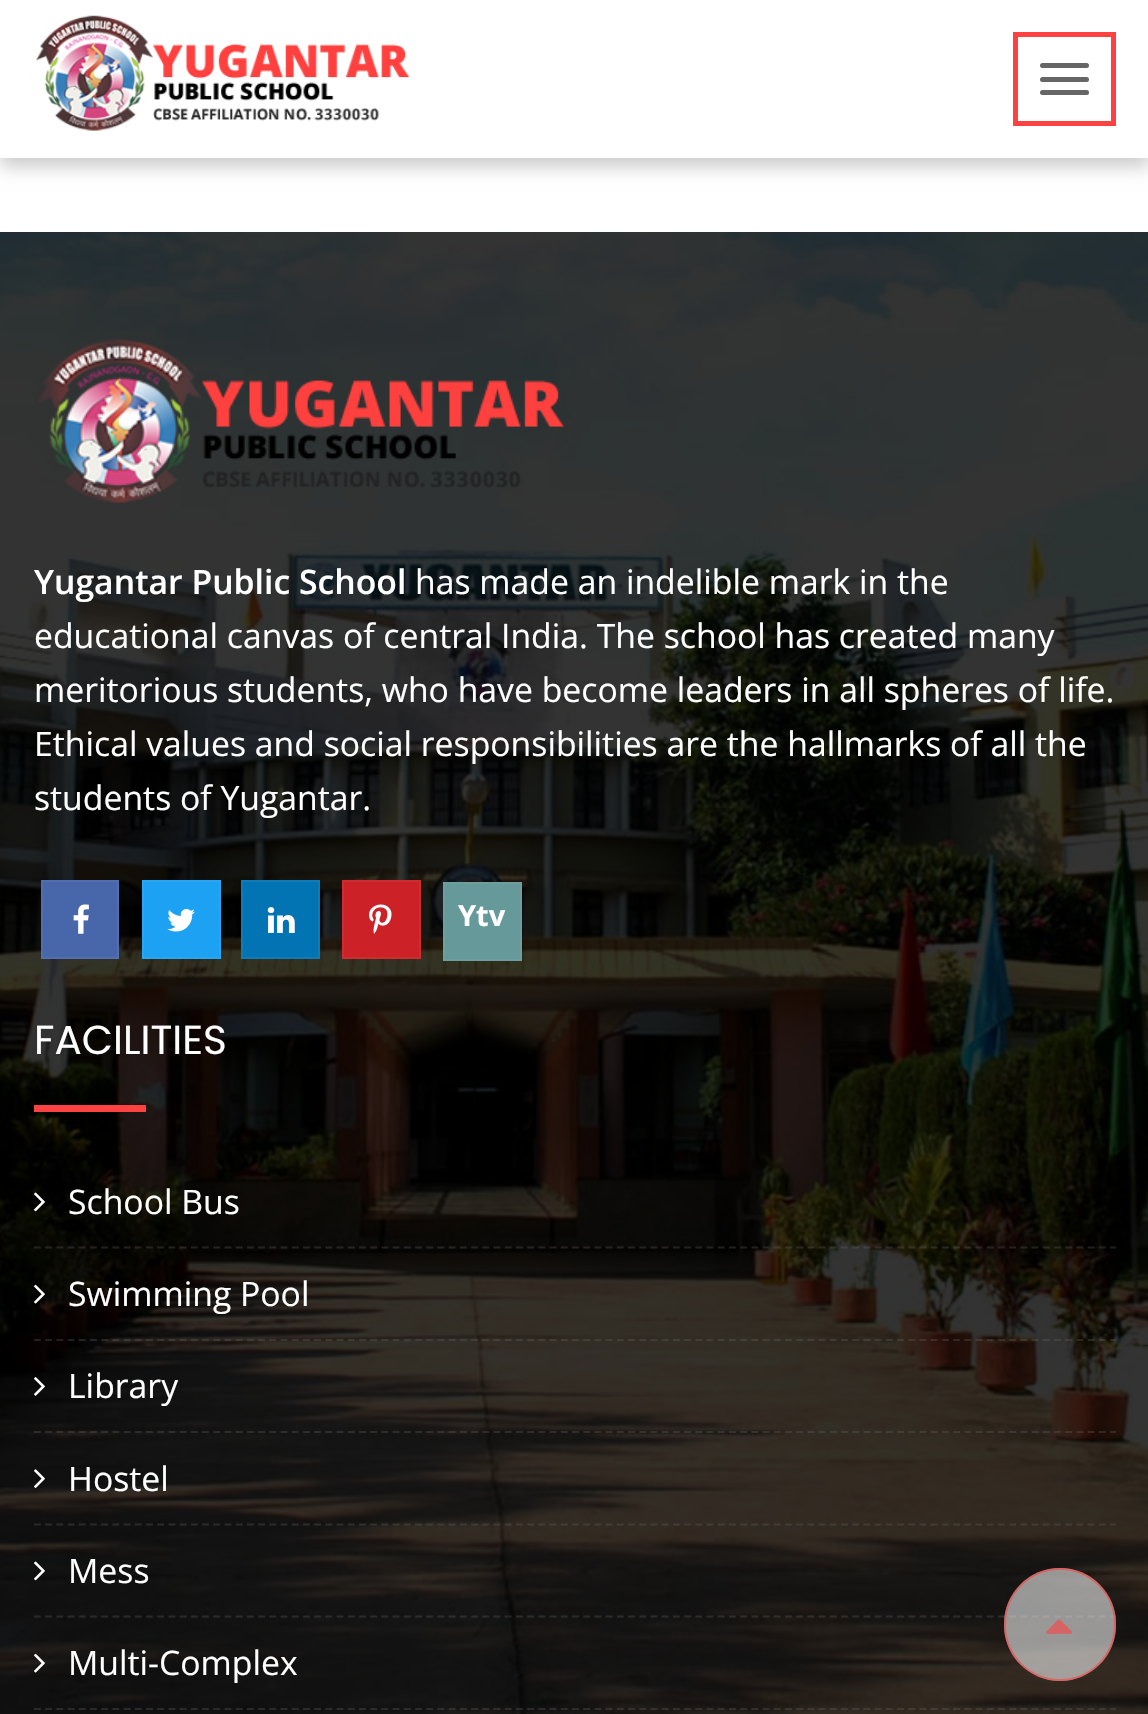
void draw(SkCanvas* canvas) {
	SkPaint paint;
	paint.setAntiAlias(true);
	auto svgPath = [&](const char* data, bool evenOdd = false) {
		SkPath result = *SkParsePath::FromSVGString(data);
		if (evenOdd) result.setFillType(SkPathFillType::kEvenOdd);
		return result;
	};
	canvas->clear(0xffffffff);
	paint.setColor(0x33000000);
	paint.setMaskFilter(SkMaskFilter::MakeBlur(kNormal_SkBlurStyle, 8.5));
	canvas->drawRect(SkRect::MakeXYWH(0, 9, 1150, 158), paint);
	paint.setMaskFilter(nullptr);
	paint.setColor(0xffffffff);
	canvas->drawRect(SkRect::MakeXYWH(0, 0, 1148, 158), paint);
	canvas->drawImageRect(SkImages::DeferredFromEncodedData(SkData::MakeFromFileName("img1.png")), SkRect::MakeXYWH(36, 15, 374, 116), SkSamplingOptions());
	paint.setStroke(true);
	paint.setStrokeWidth(5);
	paint.setColor(0xfffe4141);
	canvas->drawRect(SkRect::MakeXYWH(1015.5, 34.5, 98, 89), paint);
	paint.setStroke(false);
	paint.setColor(0xff666666);
	canvas->drawRoundRect(SkRect::MakeXYWH(1040, 63, 49, 5), 2.5, 2.5, paint);
	canvas->drawRoundRect(SkRect::MakeXYWH(1040, 77, 49, 5), 2.5, 2.5, paint);
	canvas->drawRoundRect(SkRect::MakeXYWH(1040, 90, 49, 5), 2.5, 2.5, paint);
	canvas->drawImageRect(SkImages::DeferredFromEncodedData(SkData::MakeFromFileName("img2.png")), SkRect::MakeXYWH(0, 232, 1148, 1482), SkSamplingOptions());
	canvas->drawImageRect(SkImages::DeferredFromEncodedData(SkData::MakeFromFileName("img3.png")), SkRect::MakeXYWH(38, 339, 527, 164), SkSamplingOptions());
	SkFont f1(fontMgr->matchFamilyStyle("Open Sans", SkFontStyle(600, SkFontStyle::kNormal_Width, SkFontStyle::kUpright_Slant)), 33.75);
	f1.setSubpixel(true);
	paint.setColor(0xffffffff);
	canvas->drawString("Yugantar Public School", 34, 594, f1, paint);
	SkFont f2(fontMgr->matchFamilyStyle("Open Sans", SkFontStyle::Normal()), 33.75);
	f2.setSubpixel(true);
	canvas->drawString("has made an indelible mark in the", 415, 594, f2, paint);
	canvas->drawString("educational canvas of central India. The school has created many", 34, 648, f2, paint);
	canvas->drawString("meritorious students, who have become leaders in all spheres of life.", 34, 702, f2, paint);
	canvas->drawString("Ethical values and social responsibilities are the hallmarks of all the", 34, 756, f2, paint);
	canvas->drawString("students of Yugantar.", 34, 810, f2, paint);
	paint.setColor(0xff4867aa);
	canvas->drawRect(SkRect::MakeXYWH(42, 881, 76, 77), paint);
	paint.setStroke(true);
	paint.setStrokeWidth(2);
	paint.setColor(0xff516fae);
	canvas->drawRect(SkRect::MakeXYWH(42, 881, 76, 77), paint);
	canvas->drawImageRect(SkImages::DeferredFromEncodedData(SkData::MakeFromFileName("img4.png")), SkRect::MakeXYWH(73, 904, 16, 30), SkSamplingOptions());
	paint.setStroke(false);
	paint.setColor(0xff1da1f2);
	canvas->drawRect(SkRect::MakeXYWH(143, 881, 77, 77), paint);
	paint.setStroke(true);
	paint.setColor(0xff28a6f3);
	canvas->drawRect(SkRect::MakeXYWH(143, 881, 77, 77), paint);
	canvas->drawImageRect(SkImages::DeferredFromEncodedData(SkData::MakeFromFileName("img5.png")), SkRect::MakeXYWH(167, 909, 28, 23), SkSamplingOptions());
	paint.setStroke(false);
	paint.setColor(0xff0274b3);
	canvas->drawRect(SkRect::MakeXYWH(242, 881, 77, 77), paint);
	paint.setStroke(true);
	paint.setColor(0xff0f7bb7);
	canvas->drawRect(SkRect::MakeXYWH(242, 881, 77, 77), paint);
	canvas->drawImageRect(SkImages::DeferredFromEncodedData(SkData::MakeFromFileName("img6.png")), SkRect::MakeXYWH(267, 907, 28, 26), SkSamplingOptions());
	paint.setStroke(false);
	paint.setColor(0xffcc2127);
	canvas->drawRect(SkRect::MakeXYWH(343, 881, 77, 77), paint);
	paint.setStroke(true);
	paint.setColor(0xffcf2c32);
	canvas->drawRect(SkRect::MakeXYWH(343, 881, 77, 77), paint);
	canvas->drawImageRect(SkImages::DeferredFromEncodedData(SkData::MakeFromFileName("img7.png")), SkRect::MakeXYWH(369, 904, 23, 30), SkSamplingOptions());
	paint.setStroke(false);
	paint.setColor(0xff669999);
	canvas->drawRect(SkRect::MakeXYWH(444, 883, 77, 77), paint);
	paint.setStroke(true);
	paint.setColor(0xff6e9e9e);
	canvas->drawRect(SkRect::MakeXYWH(444, 883, 77, 77), paint);
	SkFont f3(fontMgr->matchFamilyStyle("Open Sans", SkFontStyle::Bold()), 29);
	f3.setSubpixel(true);
	paint.setStroke(false);
	paint.setColor(0xffffffff);
	canvas->drawString("Ytv", 458, 926, f3, paint);
	SkFont f4(fontMgr->matchFamilyStyle("Poppins", SkFontStyle::Normal()), 40.5);
	f4.setSubpixel(true);
	canvas->drawString("FACILITIES", 34, 1054, f4, paint);
	paint.setColor(0xfffe4141);
	canvas->drawRect(SkRect::MakeXYWH(34, 1105, 112, 7), paint);
	paint.setStroke(true);
	paint.setStrokeWidth(2.2);
	paint.setColor(0x4d666666);
	paint.setPathEffect(SkDashPathEffect::Make({{6.75f, 4.46f}}, 0));
	canvas->drawPath(svgPath("M34 1247.5H1116"), paint);
	paint.setPathEffect(nullptr);
	canvas->drawImageRect(SkImages::DeferredFromEncodedData(SkData::MakeFromFileName("img8.png")), SkRect::MakeXYWH(34, 1192, 11, 20), SkSamplingOptions());
	paint.setStroke(false);
	paint.setColor(0xffffffff);
	canvas->drawString("School Bus", 68, 1214, f2, paint);
	paint.setStroke(true);
	paint.setColor(0x4d666666);
	paint.setPathEffect(SkDashPathEffect::Make({{6.75f, 4.46f}}, 0));
	canvas->drawPath(svgPath("M34 1340H1116"), paint);
	paint.setPathEffect(nullptr);
	canvas->drawImageRect(SkImages::DeferredFromEncodedData(SkData::MakeFromFileName("img9.png")), SkRect::MakeXYWH(34, 1284, 11, 20), SkSamplingOptions());
	paint.setStroke(false);
	paint.setColor(0xffffffff);
	canvas->drawString("Swimming Pool", 68, 1306, f2, paint);
	paint.setStroke(true);
	paint.setColor(0x4d666666);
	paint.setPathEffect(SkDashPathEffect::Make({{6.75f, 4.46f}}, 0));
	canvas->drawPath(svgPath("M34 1432H1116"), paint);
	paint.setPathEffect(nullptr);
	canvas->drawImageRect(SkImages::DeferredFromEncodedData(SkData::MakeFromFileName("img10.png")), SkRect::MakeXYWH(34, 1377, 11, 19), SkSamplingOptions());
	paint.setStroke(false);
	paint.setColor(0xffffffff);
	canvas->drawString("Library", 68, 1398, f2, paint);
	paint.setStroke(true);
	paint.setColor(0x4d666666);
	paint.setPathEffect(SkDashPathEffect::Make({{6.75f, 4.46f}}, 0));
	canvas->drawPath(svgPath("M34 1524.5H1116"), paint);
	paint.setPathEffect(nullptr);
	canvas->drawImageRect(SkImages::DeferredFromEncodedData(SkData::MakeFromFileName("img11.png")), SkRect::MakeXYWH(34, 1469, 11, 19), SkSamplingOptions());
	paint.setStroke(false);
	paint.setColor(0xffffffff);
	canvas->drawString("Hostel", 68, 1491, f2, paint);
	paint.setStroke(true);
	paint.setColor(0x4d666666);
	paint.setPathEffect(SkDashPathEffect::Make({{6.75f, 4.46f}}, 0));
	canvas->drawPath(svgPath("M34 1616.5H1116"), paint);
	paint.setPathEffect(nullptr);
	canvas->drawImageRect(SkImages::DeferredFromEncodedData(SkData::MakeFromFileName("img12.png")), SkRect::MakeXYWH(34, 1561, 11, 20), SkSamplingOptions());
	paint.setStroke(false);
	paint.setColor(0xffffffff);
	canvas->drawString("Mess", 68, 1583, f2, paint);
	paint.setStroke(true);
	paint.setColor(0x4d666666);
	paint.setPathEffect(SkDashPathEffect::Make({{6.75f, 4.46f}}, 0));
	canvas->drawPath(svgPath("M34 1709H1116"), paint);
	paint.setPathEffect(nullptr);
	canvas->drawImageRect(SkImages::DeferredFromEncodedData(SkData::MakeFromFileName("img13.png")), SkRect::MakeXYWH(34, 1653, 11, 20), SkSamplingOptions());
	paint.setStroke(false);
	paint.setColor(0xffffffff);
	canvas->drawString("Multi-Complex", 68, 1675, f2, paint);
	paint.setColor(0x99efefef);
	canvas->drawRoundRect(SkRect::MakeXYWH(1004, 1568, 112, 113), 56, 56, paint);
	paint.setStroke(true);
	paint.setStrokeWidth(2);
	paint.setColor(0x99fe4141);
	canvas->drawRoundRect(SkRect::MakeXYWH(1005, 1569, 110, 111), 55, 55, paint);
	canvas->drawImageRect(SkImages::DeferredFromEncodedData(SkData::MakeFromFileName("img14.png")), SkRect::MakeXYWH(1046, 1619, 26, 15), SkSamplingOptions());
}
